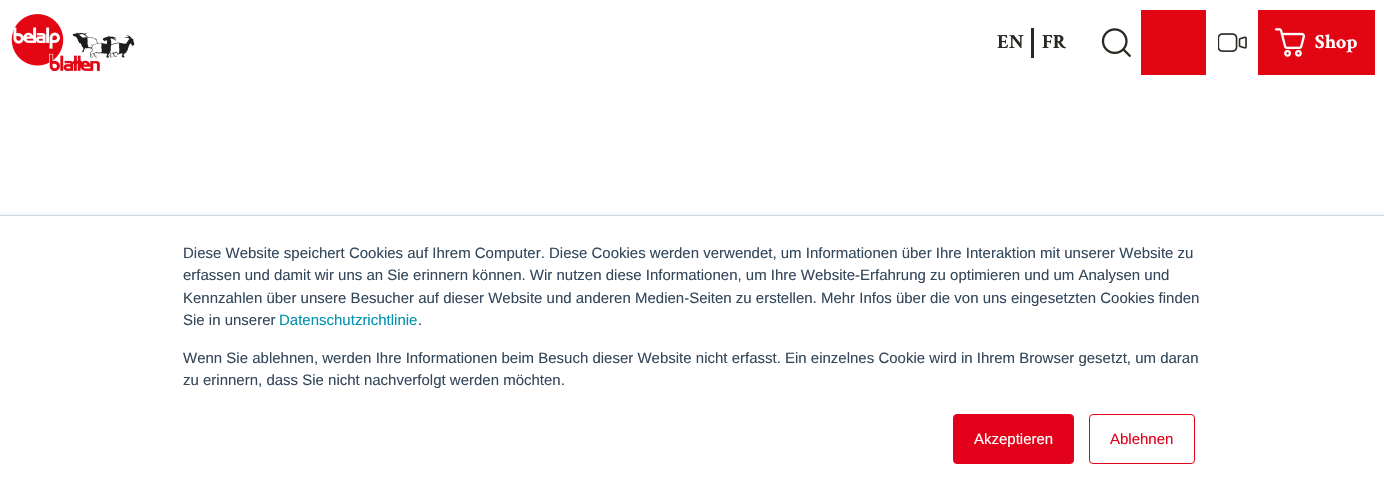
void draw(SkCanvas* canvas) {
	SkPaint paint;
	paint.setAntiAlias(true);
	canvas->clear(0xffffffff);
	canvas->drawImageRect(SkImages::DeferredFromEncodedData(SkData::MakeFromFileName("img1.png")), SkRect::MakeXYWH(11, 14, 124, 58), SkSamplingOptions());
	paint.setColor(0xff292923);
	canvas->drawRect(SkRect::MakeXYWH(1031, 28, 3, 30), paint);
	SkFont f1(fontMgr->matchFamilyStyle("Crimson Text", SkFontStyle::Bold()), 20);
	f1.setSubpixel(true);
	canvas->drawString("EN", 997, 48, f1, paint);
	canvas->drawString("FR", 1042, 48, f1, paint);
	canvas->drawImageRect(SkImages::DeferredFromEncodedData(SkData::MakeFromFileName("img2.png")), SkRect::MakeXYWH(1101, 28, 30, 29), SkSamplingOptions());
	paint.setColor(0xffe20613);
	canvas->drawRect(SkRect::MakeXYWH(1141, 10, 65, 65), paint);
	canvas->drawImageRect(SkImages::DeferredFromEncodedData(SkData::MakeFromFileName("img3.png")), SkRect::MakeXYWH(1218, 33, 29, 19), SkSamplingOptions());
	canvas->drawRect(SkRect::MakeXYWH(1258, 10, 117, 65), paint);
	canvas->drawImageRect(SkImages::DeferredFromEncodedData(SkData::MakeFromFileName("img4.png")), SkRect::MakeXYWH(1275, 28, 30, 29), SkSamplingOptions());
	paint.setColor(0xffffffff);
	canvas->drawString("Shop", 1315, 48, f1, paint);
	paint.setColor(0xffeaf0f6);
	paint.setMaskFilter(SkMaskFilter::MakeBlur(kNormal_SkBlurStyle, 2));
	canvas->drawRect(SkRect::MakeXYWH(0, 214, 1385, 281), paint);
	paint.setMaskFilter(nullptr);
	paint.setColor(0xffffffff);
	canvas->drawRect(SkRect::MakeXYWH(0, 216, 1384, 280), paint);
	paint.setColor(0xffcbd6e2);
	canvas->drawRect(SkRect::MakeXYWH(0, 215, 1384, 1), paint);
	SkFont f2(fontMgr->matchFamilyStyle("Liberation Sans", SkFontStyle::Normal()), 15);
	f2.setSubpixel(true);
	paint.setColor(0xff33475b);
	canvas->drawString("Diese Website speichert Cookies auf Ihrem Computer. Diese Cookies werden verwendet, um Informationen über Ihre Interaktion mit unserer Website zu", 183, 258, f2, paint);
	canvas->drawString("erfassen und damit wir uns an Sie erinnern können. Wir nutzen diese Informationen, um Ihre Website-Erfahrung zu optimieren und um Analysen und", 183, 280, f2, paint);
	canvas->drawString("Kennzahlen über unsere Besucher auf dieser Website und anderen Medien-Seiten zu erstellen. Mehr Infos über die von uns eingesetzten Cookies finden", 183, 303, f2, paint);
	canvas->drawString("Sie in unserer", 183, 325, f2, paint);
	paint.setColor(0xff0091ae);
	canvas->drawString("Datenschutzrichtlinie", 279, 325, f2, paint);
	paint.setColor(0xff33475b);
	canvas->drawString(".", 418, 325, f2, paint);
	canvas->drawString("Wenn Sie ablehnen, werden Ihre Informationen beim Besuch dieser Website nicht erfasst. Ein einzelnes Cookie wird in Ihrem Browser gesetzt, um daran", 183, 363, f2, paint);
	canvas->drawString("zu erinnern, dass Sie nicht nachverfolgt werden möchten.", 183, 385, f2, paint);
	paint.setColor(0xffe2001a);
	canvas->drawRoundRect(SkRect::MakeXYWH(953.5, 414.5, 120, 49), 3.5, 3.5, paint);
	paint.setStroke(true);
	paint.setStrokeWidth(1);
	canvas->drawRoundRect(SkRect::MakeXYWH(953.5, 414.5, 120, 49), 3.5, 3.5, paint);
	paint.setStroke(false);
	paint.setColor(0xffffffff);
	canvas->drawString("Akzeptieren", 974, 444, f2, paint);
	paint.setStroke(true);
	paint.setColor(0xffe2001a);
	canvas->drawRoundRect(SkRect::MakeXYWH(1089.5, 414.5, 105, 49), 3.5, 3.5, paint);
	paint.setStroke(false);
	canvas->drawString("Ablehnen", 1110, 444, f2, paint);
}
